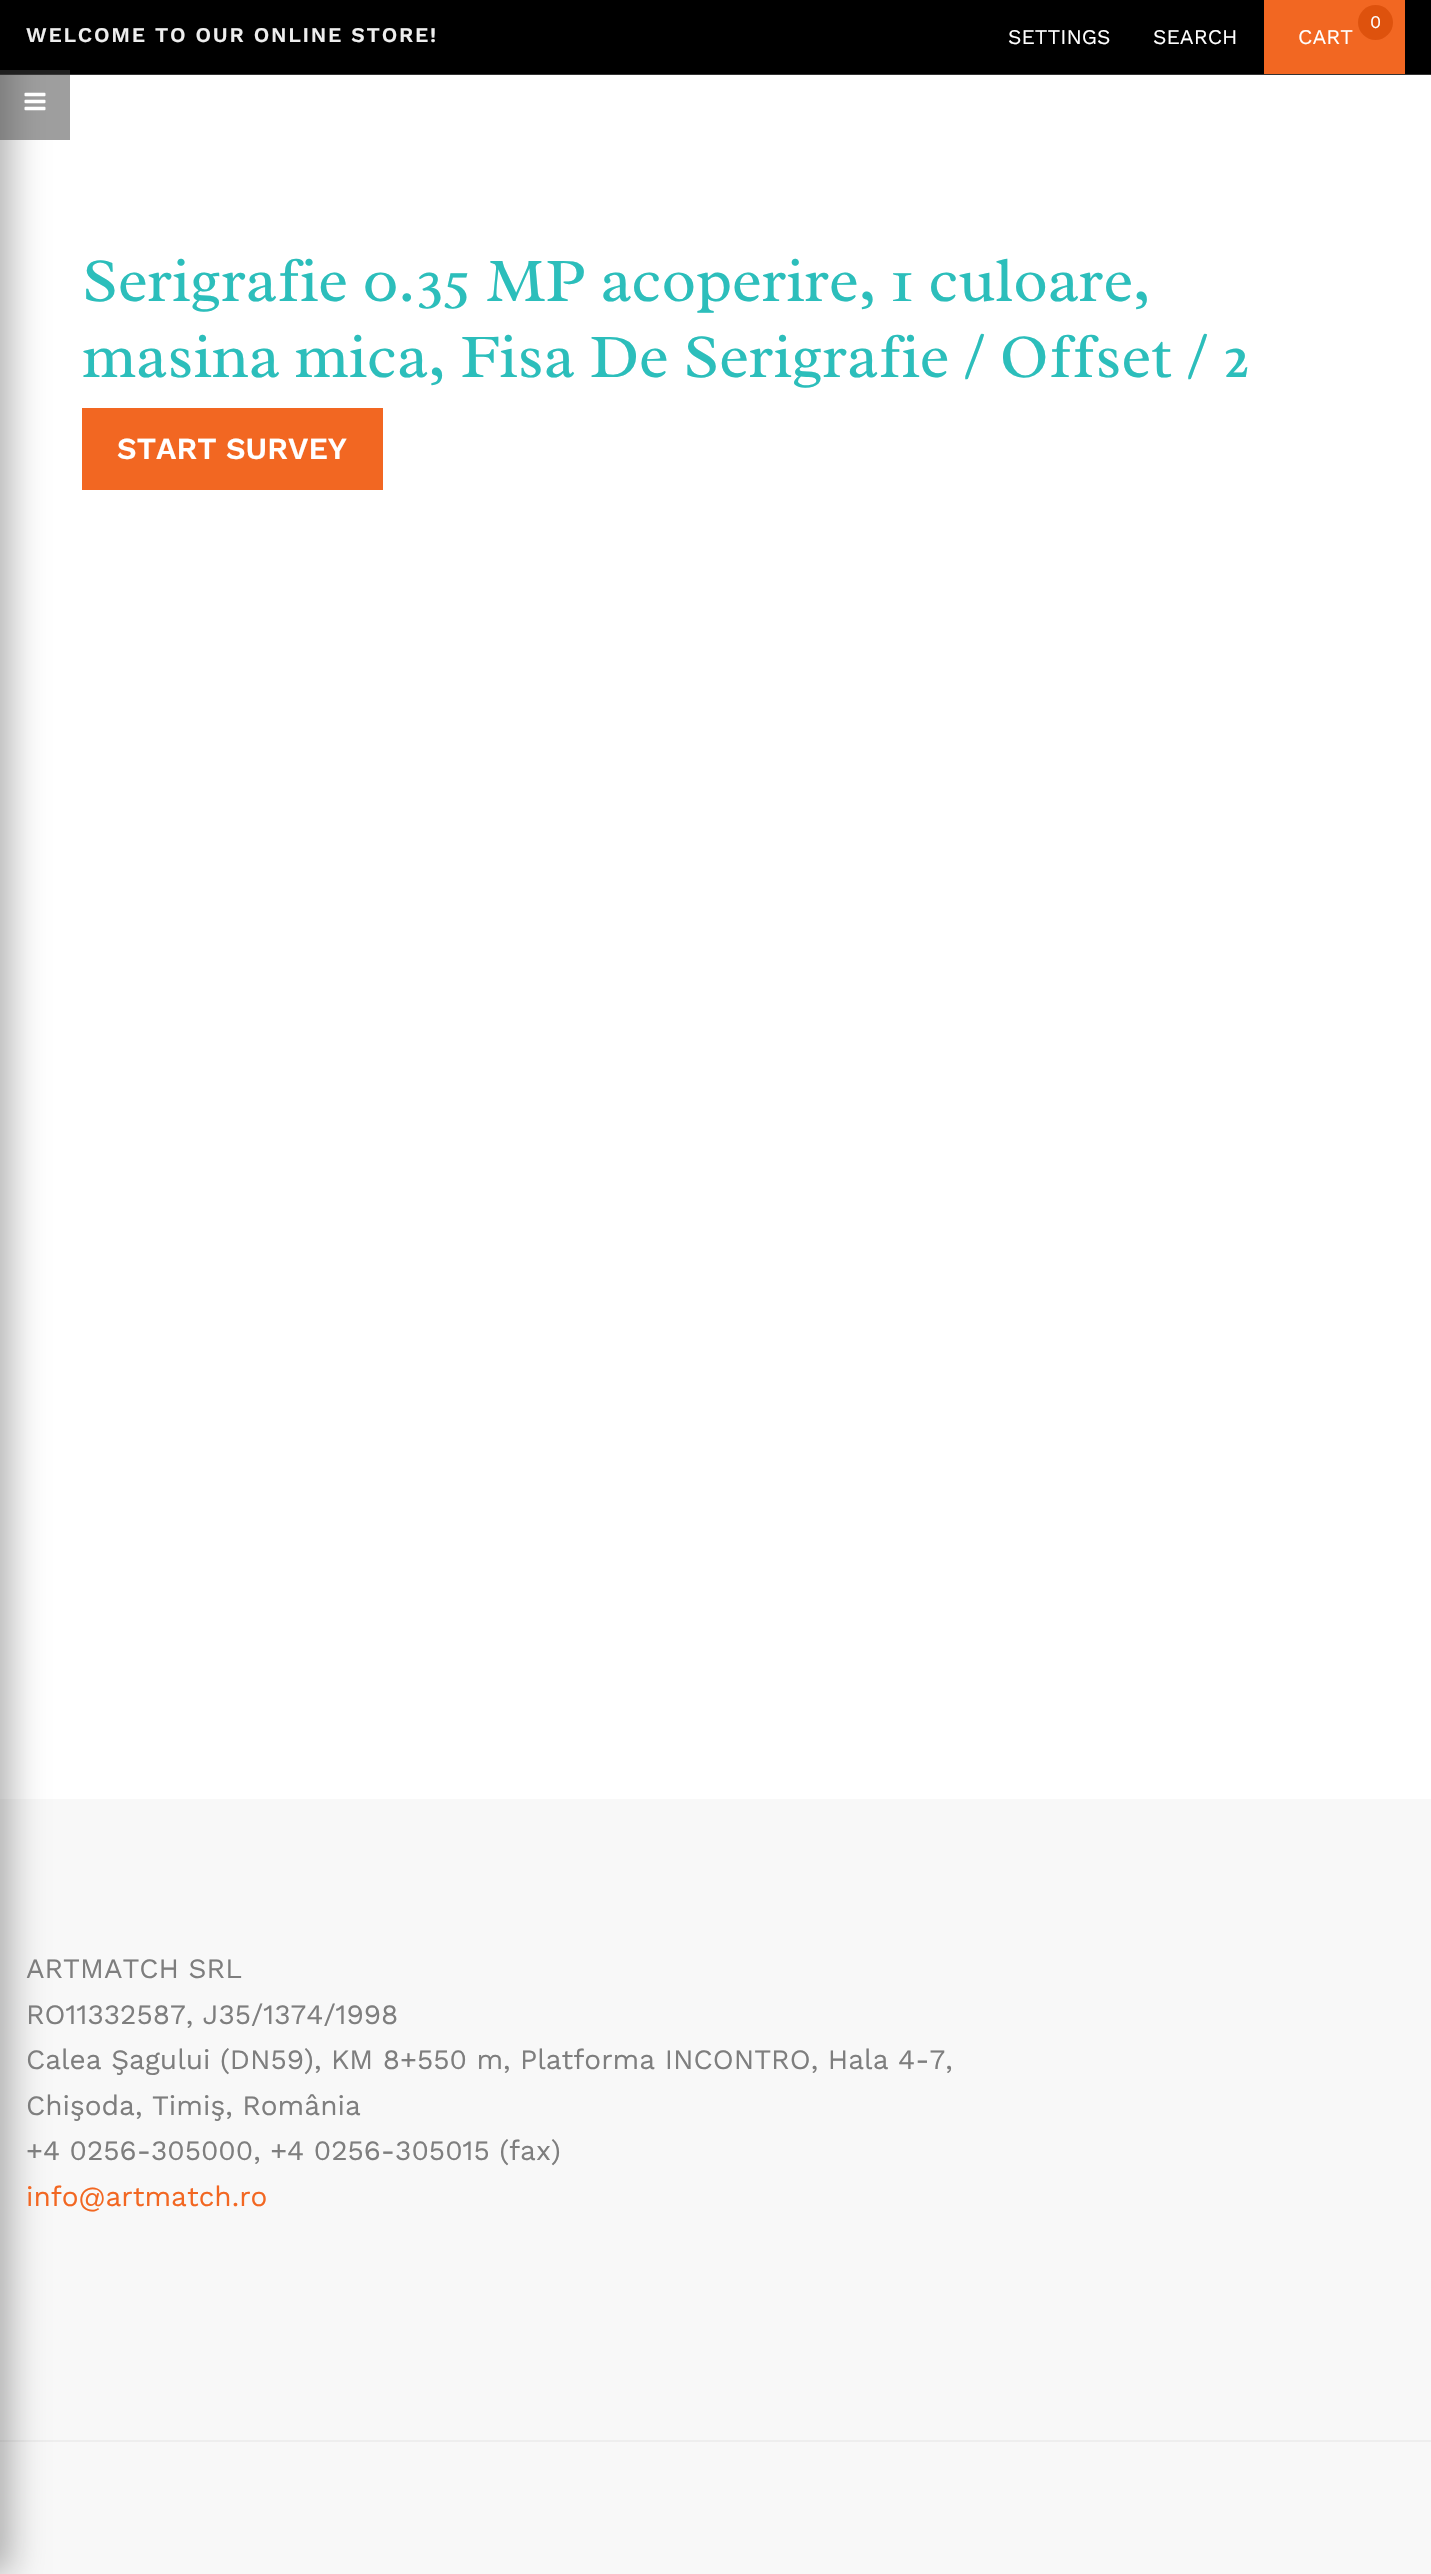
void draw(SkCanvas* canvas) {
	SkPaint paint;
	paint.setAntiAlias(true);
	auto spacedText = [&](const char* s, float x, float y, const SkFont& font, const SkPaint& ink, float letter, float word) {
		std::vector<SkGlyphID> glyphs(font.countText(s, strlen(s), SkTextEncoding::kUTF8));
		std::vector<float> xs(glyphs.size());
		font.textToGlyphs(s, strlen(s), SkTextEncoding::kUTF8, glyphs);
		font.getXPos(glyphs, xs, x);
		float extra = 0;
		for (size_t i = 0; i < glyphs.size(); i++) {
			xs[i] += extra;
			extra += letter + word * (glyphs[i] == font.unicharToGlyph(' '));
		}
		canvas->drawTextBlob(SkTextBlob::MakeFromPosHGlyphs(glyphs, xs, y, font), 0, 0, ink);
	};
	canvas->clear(0xffffffff);
	paint.setColor(0xff000000);
	canvas->drawRect(SkRect::MakeXYWH(0, 0, 1431, 74), paint);
	paint.setColor(0xff333333);
	canvas->drawRect(SkRect::MakeXYWH(0, 74, 1431, 1), paint);
	paint.setColor(0xfff8f8f8);
	canvas->drawRect(SkRect::MakeXYWH(0, 1799, 1431, 641), paint);
	canvas->drawRect(SkRect::MakeXYWH(0, 2442, 1431, 132), paint);
	paint.setColor(0xffeeeeee);
	canvas->drawRect(SkRect::MakeXYWH(0, 2440, 1431, 2), paint);
	paint.setColor(0x4d000000);
	paint.setMaskFilter(SkMaskFilter::MakeBlur(kNormal_SkBlurStyle, 17.5));
	canvas->drawRect(SkRect::MakeXYWH(-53, 0, 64, 2574), paint);
	paint.setMaskFilter(nullptr);
	paint.setColor(0x803e3e3e);
	canvas->drawRect(SkRect::MakeXYWH(0, 70, 70, 70), paint);
	canvas->drawImageRect(SkImages::DeferredFromEncodedData(SkData::MakeFromFileName("img1.png")), SkRect::MakeXYWH(24, 92, 22, 19), SkSamplingOptions());
	SkFont f1(fontMgr->matchFamilyStyle("Work Sans", SkFontStyle(600, SkFontStyle::kNormal_Width, SkFontStyle::kUpright_Slant)), 21);
	f1.setSubpixel(true);
	paint.setColor(0xffeeeeee);
	spacedText("WELCOME TO OUR ONLINE STORE!", 26, 42, f1, paint, 1.75, 0);
	SkFont f2(fontMgr->matchFamilyStyle("Work Sans", SkFontStyle::Normal()), 21);
	f2.setSubpixel(true);
	paint.setColor(0xffffffff);
	canvas->drawString("SETTINGS", 1008, 44, f2, paint);
	canvas->drawString("SEARCH", 1153, 44, f2, paint);
	paint.setColor(0xfff26722);
	canvas->drawRect(SkRect::MakeXYWH(1264, 0, 141, 74), paint);
	paint.setColor(0xffde520d);
	canvas->drawCircle(1375.5, 22.5, 17.5, paint);
	SkFont f3(fontMgr->matchFamilyStyle("Work Sans", SkFontStyle::Normal()), 18);
	f3.setSubpixel(true);
	paint.setColor(0xffffffff);
	canvas->drawString("0", 1370, 28, f3, paint);
	canvas->drawString("CART", 1298, 44, f2, paint);
	SkFont f4(fontMgr->matchFamilyStyle("Radley", SkFontStyle::Normal()), 63);
	f4.setSubpixel(true);
	paint.setColor(0xff2cbebb);
	canvas->drawString("Serigrafie 0.35 MP acoperire, 1 culoare,", 82, 301, f4, paint);
	canvas->drawString("masina mica, Fisa De Serigrafie / Offset / 2", 82, 377, f4, paint);
	paint.setColor(0xfff26722);
	canvas->drawRect(SkRect::MakeXYWH(82, 408, 301, 82), paint);
	SkFont f5(fontMgr->matchFamilyStyle("Work Sans", SkFontStyle(600, SkFontStyle::kNormal_Width, SkFontStyle::kUpright_Slant)), 30.5);
	f5.setSubpixel(true);
	paint.setColor(0xffffffff);
	canvas->drawString("START SURVEY", 117, 459, f5, paint);
	SkFont f6(fontMgr->matchFamilyStyle("Work Sans", SkFontStyle::Normal()), 28);
	f6.setSubpixel(true);
	paint.setColor(0xff7e7e7e);
	canvas->drawString("ARTMATCH SRL", 26, 1978, f6, paint);
	canvas->drawString("RO11332587, J35/1374/1998", 26, 2024, f6, paint);
	canvas->drawString("Calea Şagului (DN59), KM 8+550 m, Platforma INCONTRO, Hala 4-7,", 26, 2069, f6, paint);
	canvas->drawString("Chişoda, Timiş, România", 26, 2115, f6, paint);
	canvas->drawString("+4 0256-305000, +4 0256-305015 (fax)", 26, 2160, f6, paint);
	paint.setColor(0xfff26722);
	canvas->drawString("info@artmatch.ro", 26, 2206, f6, paint);
}
